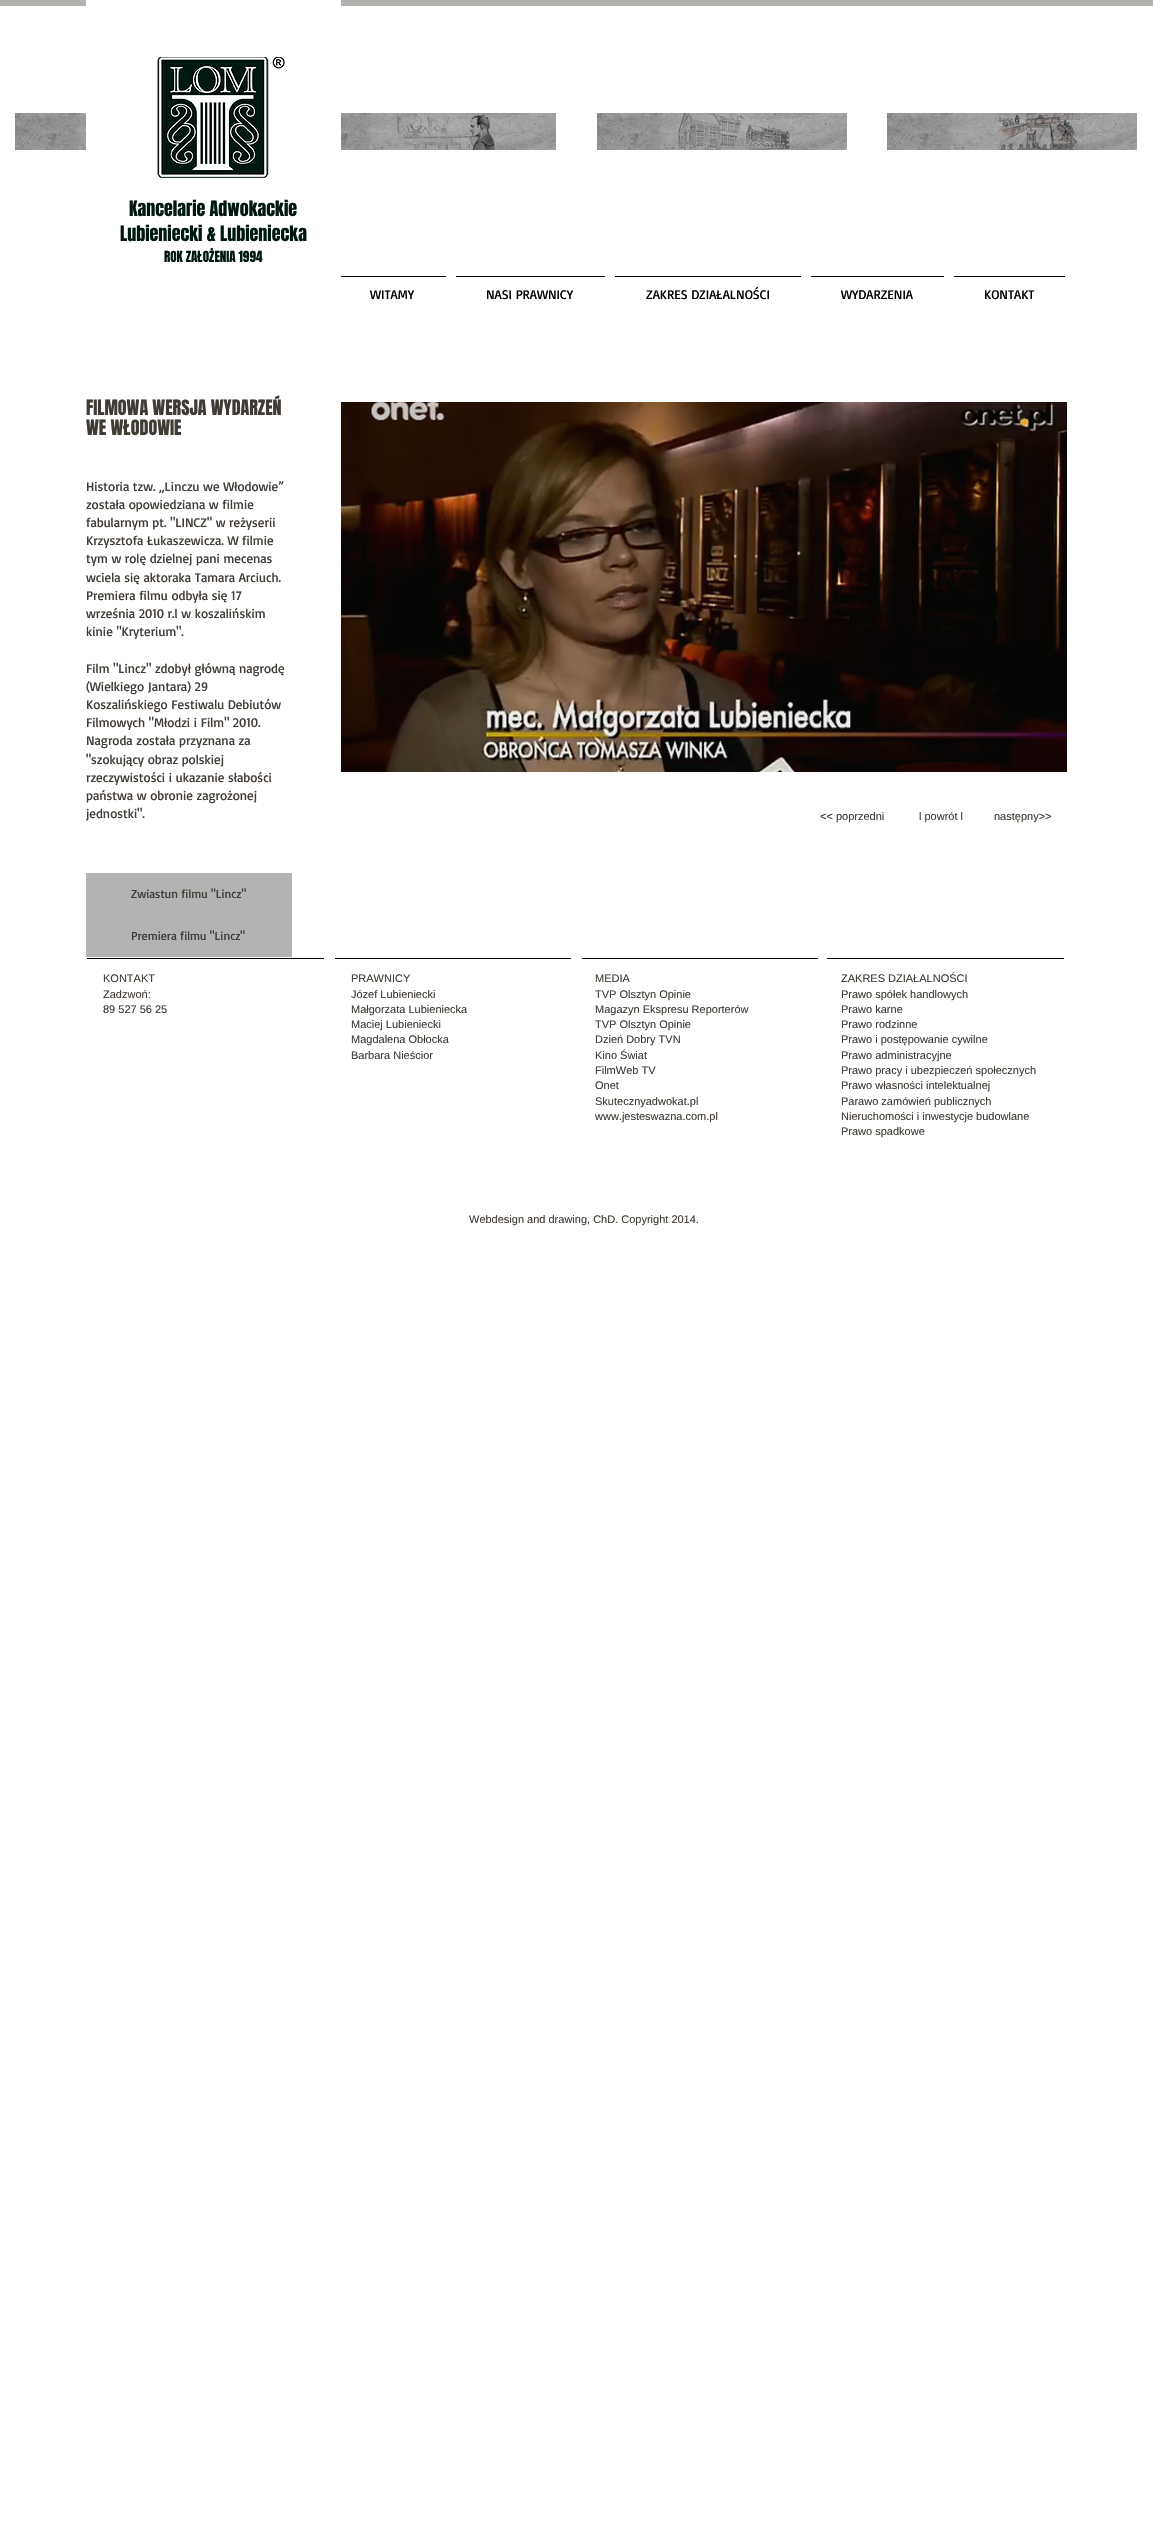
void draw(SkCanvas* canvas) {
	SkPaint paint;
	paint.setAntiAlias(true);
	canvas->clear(0xffffffff);
	paint.setColor(0xffb3b1ae);
	canvas->drawRect(SkRect::MakeXYWH(0, 0, 1153, 6), paint);
	canvas->drawImageRect(SkImages::DeferredFromEncodedData(SkData::MakeFromFileName("img1.png")), SkRect::MakeXYWH(15, 113, 71, 37), SkSamplingOptions());
	canvas->drawImageRect(SkImages::DeferredFromEncodedData(SkData::MakeFromFileName("img2.png")), SkRect::MakeXYWH(341, 113, 215, 37), SkSamplingOptions());
	canvas->drawImageRect(SkImages::DeferredFromEncodedData(SkData::MakeFromFileName("img3.png")), SkRect::MakeXYWH(597, 113, 250, 37), SkSamplingOptions());
	canvas->drawImageRect(SkImages::DeferredFromEncodedData(SkData::MakeFromFileName("img4.png")), SkRect::MakeXYWH(887, 113, 250, 37), SkSamplingOptions());
	paint.setColor(0xff000000);
	canvas->drawRect(SkRect::MakeXYWH(340, 276, 106, 1), paint);
	paint.setColor(0xffffffff);
	canvas->drawRect(SkRect::MakeXYWH(86, 0, 255, 277), paint);
	canvas->drawImageRect(SkImages::DeferredFromEncodedData(SkData::MakeFromFileName("img5.png")), SkRect::MakeXYWH(157, 57, 128, 121), SkSamplingOptions());
	SkFont f1(fontMgr->matchFamilyStyle("Anton", SkFontStyle::Normal()), 18);
	f1.setSubpixel(true);
	paint.setColor(0xff001910);
	canvas->drawString("Kancelarie Adwokackie", 129, 216, f1, paint);
	canvas->drawString("Lubieniecki & Lubieniecka", 120, 241, f1, paint);
	SkFont f2(fontMgr->matchFamilyStyle("Anton", SkFontStyle::Normal()), 13);
	f2.setSubpixel(true);
	canvas->drawString("ROK ZAŁOŻENIA 1994", 164, 262, f2, paint);
	SkFont f3(fontMgr->matchFamilyStyle("Basic", SkFontStyle::Normal()), 13);
	f3.setSubpixel(true);
	paint.setColor(0xff000000);
	canvas->drawString("WITAMY", 370, 299, f3, paint);
	canvas->drawRect(SkRect::MakeXYWH(456, 276, 149, 1), paint);
	canvas->drawString("NASI PRAWNICY", 486, 299, f3, paint);
	canvas->drawRect(SkRect::MakeXYWH(615, 276, 186, 1), paint);
	canvas->drawString("ZAKRES DZIAŁALNOŚCI", 646, 299, f3, paint);
	canvas->drawRect(SkRect::MakeXYWH(811, 276, 133, 1), paint);
	canvas->drawString("WYDARZENIA", 841, 299, f3, paint);
	canvas->drawRect(SkRect::MakeXYWH(954, 276, 111, 1), paint);
	canvas->drawString("KONTAKT", 984, 299, f3, paint);
	paint.setColor(0xff403b35);
	canvas->drawString("FILMOWA WERSJA WYDARZEŃ", 86, 415, f1, paint);
	canvas->drawString("WE WŁODOWIE", 86, 435, f1, paint);
	canvas->drawString("Historia tzw. „Linczu we Włodowie”", 86, 491, f3, paint);
	canvas->drawString("została opowiedziana w filmie", 86, 509, f3, paint);
	canvas->drawString("fabularnym pt. \"LINCZ\" w reżyserii", 86, 527, f3, paint);
	canvas->drawString("Krzysztofa Łukaszewicza. W filmie", 86, 545, f3, paint);
	canvas->drawString("tym w rolę dzielnej pani mecenas", 86, 563, f3, paint);
	canvas->drawString("wciela się aktoraka Tamara Arciuch.", 86, 582, f3, paint);
	canvas->drawString("Premiera filmu odbyła się 17", 86, 600, f3, paint);
	canvas->drawString("września 2010 r.l w koszalińskim", 86, 618, f3, paint);
	canvas->drawString("kinie \"Kryterium\".", 86, 636, f3, paint);
	canvas->drawString("Film \"Lincz\" zdobył główną nagrodę", 86, 673, f3, paint);
	canvas->drawString("(Wielkiego Jantara) 29", 86, 691, f3, paint);
	canvas->drawString("Koszalińskiego Festiwalu Debiutów", 86, 709, f3, paint);
	canvas->drawString("Filmowych \"Młodzi i Film\" 2010.", 86, 727, f3, paint);
	canvas->drawString("Nagroda została przyznana za", 86, 745, f3, paint);
	canvas->drawString("\"szokujący obraz polskiej", 86, 764, f3, paint);
	canvas->drawString("rzeczywistości i ukazanie słabości", 86, 782, f3, paint);
	canvas->drawString("państwa w obronie zagrożonej", 86, 800, f3, paint);
	canvas->drawString("jednostki\".", 86, 818, f3, paint);
	canvas->drawImageRect(SkImages::DeferredFromEncodedData(SkData::MakeFromFileName("img6.png")), SkRect::MakeXYWH(341, 402, 726, 370), SkSamplingOptions());
	SkFont f4(fontMgr->matchFamilyStyle("Liberation Sans", SkFontStyle::Normal()), 11);
	f4.setSubpixel(true);
	canvas->drawString("<< poprzedni", 820, 820, f4, paint);
	canvas->drawString("l powrót l", 919, 820, f4, paint);
	canvas->drawString("następny>>", 994, 820, f4, paint);
	paint.setColor(0xffb3b3b3);
	canvas->drawRect(SkRect::MakeXYWH(86, 873, 206, 84), paint);
	SkFont f5(fontMgr->matchFamilyStyle("Basic", SkFontStyle::Normal()), 12);
	f5.setSubpixel(true);
	paint.setColor(0xff403b35);
	canvas->drawString("Zwiastun filmu \"Lincz\"", 131, 898, f5, paint);
	canvas->drawString("Premiera filmu \"Lincz\"", 131, 940, f5, paint);
	paint.setColor(0xff000000);
	canvas->drawRect(SkRect::MakeXYWH(87, 958, 237, 1), paint);
	canvas->drawRect(SkRect::MakeXYWH(335, 958, 236, 1), paint);
	canvas->drawRect(SkRect::MakeXYWH(582, 958, 236, 1), paint);
	canvas->drawRect(SkRect::MakeXYWH(827, 958, 237, 1), paint);
	paint.setColor(0xff403b35);
	canvas->drawString("KONTAKT", 103, 982, f4, paint);
	canvas->drawString("Zadzwoń:", 103, 998, f4, paint);
	canvas->drawString("89 527 56 25", 103, 1013, f4, paint);
	canvas->drawString("PRAWNICY", 351, 982, f4, paint);
	canvas->drawString("Józef Lubieniecki", 351, 998, f4, paint);
	canvas->drawString("Małgorzata Lubieniecka", 351, 1013, f4, paint);
	canvas->drawString("Maciej Lubieniecki", 351, 1028, f4, paint);
	canvas->drawString("Magdalena Obłocka", 351, 1043, f4, paint);
	canvas->drawString("Barbara Nieścior", 351, 1059, f4, paint);
	canvas->drawString("MEDIA", 595, 982, f4, paint);
	canvas->drawString("TVP Olsztyn Opinie", 595, 998, f4, paint);
	canvas->drawString("Magazyn Ekspresu Reporterów", 595, 1013, f4, paint);
	canvas->drawString("TVP Olsztyn Opinie", 595, 1028, f4, paint);
	canvas->drawString("Dzień Dobry TVN", 595, 1043, f4, paint);
	canvas->drawString("Kino Świat", 595, 1059, f4, paint);
	canvas->drawString("FilmWeb TV", 595, 1074, f4, paint);
	canvas->drawString("Onet", 595, 1089, f4, paint);
	canvas->drawString("Skutecznyadwokat.pl", 595, 1105, f4, paint);
	canvas->drawString("www.jesteswazna.com.pl", 595, 1120, f4, paint);
	canvas->drawString("ZAKRES DZIAŁALNOŚCI", 841, 982, f4, paint);
	canvas->drawString("Prawo spółek handlowych", 841, 998, f4, paint);
	canvas->drawString("Prawo karne", 841, 1013, f4, paint);
	canvas->drawString("Prawo rodzinne", 841, 1028, f4, paint);
	canvas->drawString("Prawo i postępowanie cywilne", 841, 1043, f4, paint);
	canvas->drawString("Prawo administracyjne", 841, 1059, f4, paint);
	canvas->drawString("Prawo pracy i ubezpieczeń społecznych", 841, 1074, f4, paint);
	canvas->drawString("Prawo własności intelektualnej", 841, 1089, f4, paint);
	canvas->drawString("Parawo zamówień publicznych", 841, 1105, f4, paint);
	canvas->drawString("Nieruchomości i inwestycje budowlane", 841, 1120, f4, paint);
	canvas->drawString("Prawo spadkowe", 841, 1135, f4, paint);
	canvas->drawString("Webdesign and drawing, ChD. Copyright 2014.", 469, 1223, f4, paint);
}
